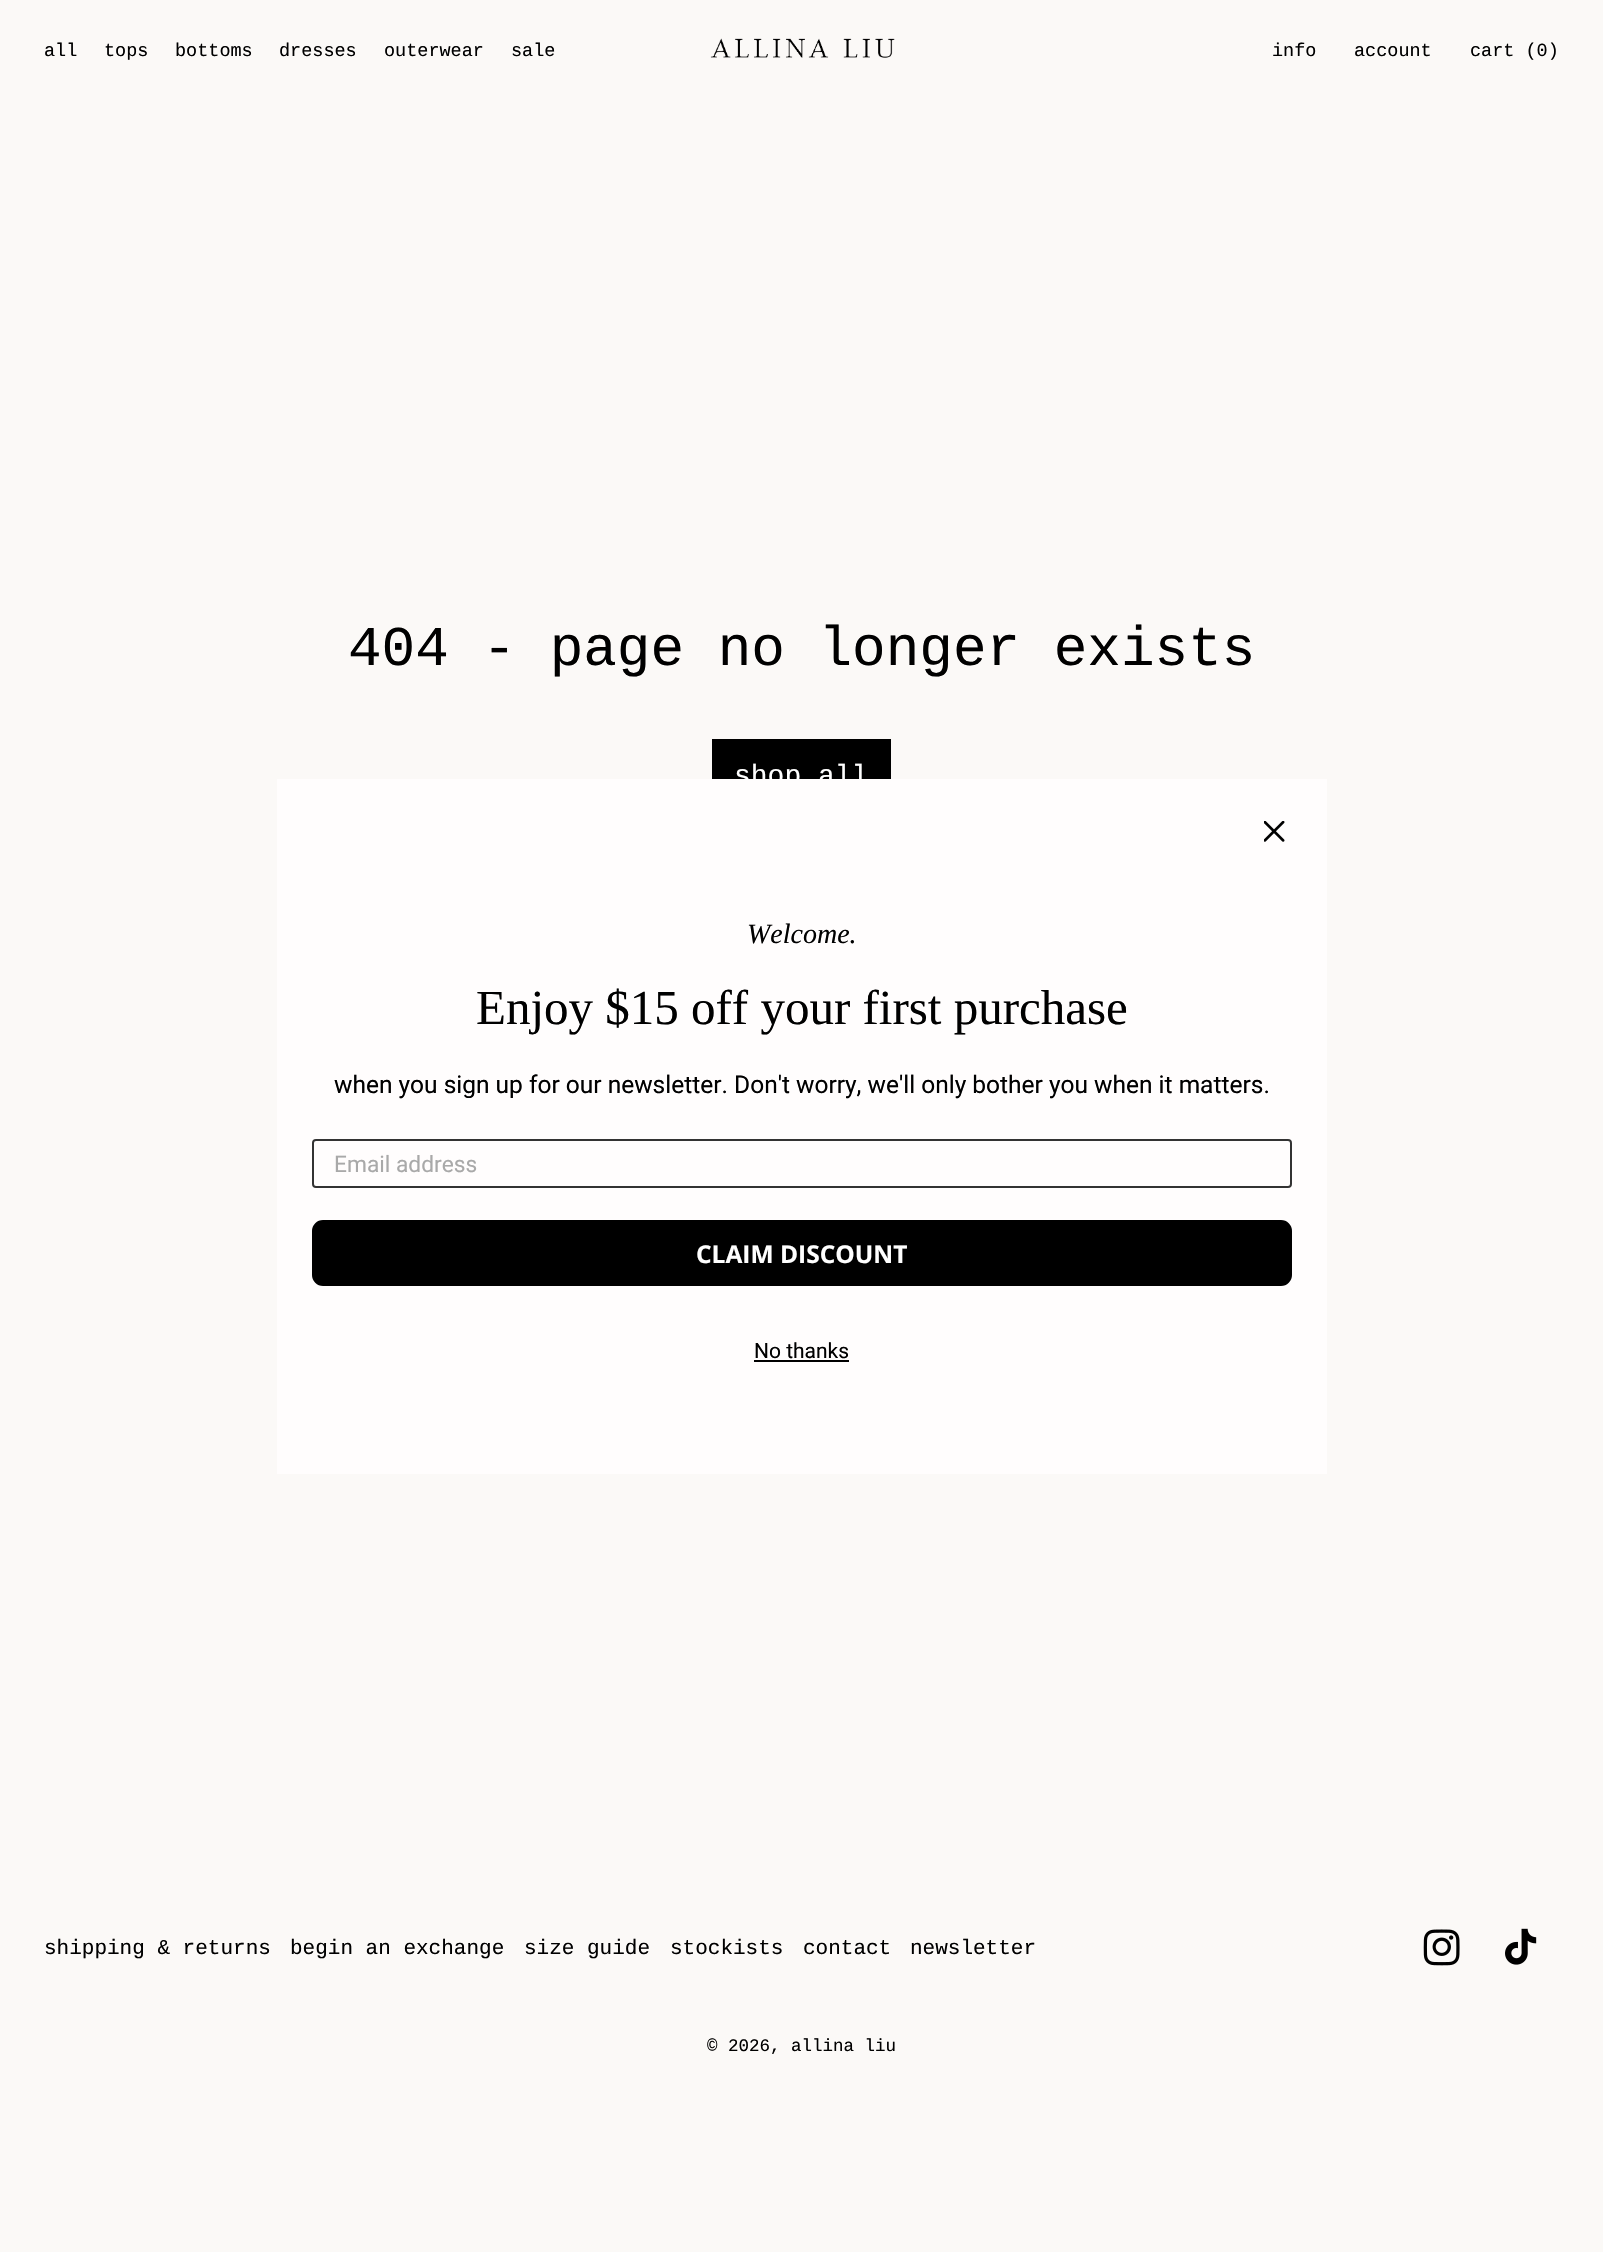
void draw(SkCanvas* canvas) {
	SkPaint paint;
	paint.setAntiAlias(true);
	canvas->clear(0xfffbf9f7);
	SkFont f1(fontMgr->matchFamilyStyle("Liberation Mono", SkFontStyle::Normal()), 18.5);
	f1.setSubpixel(true);
	paint.setColor(0xff000000);
	canvas->drawString("all", 44, 56, f1, paint);
	canvas->drawString("tops", 104, 56, f1, paint);
	canvas->drawString("bottoms", 175, 56, f1, paint);
	canvas->drawString("dresses", 279, 56, f1, paint);
	canvas->drawString("outerwear", 384, 56, f1, paint);
	canvas->drawString("sale", 511, 56, f1, paint);
	canvas->drawImageRect(SkImages::DeferredFromEncodedData(SkData::MakeFromFileName("img1.png")), SkRect::MakeXYWH(710, 38, 185, 20), SkSamplingOptions());
	canvas->drawString("info", 1272, 56, f1, paint);
	canvas->drawString("account", 1354, 56, f1, paint);
	canvas->drawString("cart (0)", 1470, 56, f1, paint);
	SkFont f2(fontMgr->matchFamilyStyle("Liberation Mono", SkFontStyle::Normal()), 56);
	f2.setSubpixel(true);
	canvas->drawString("404 - page no longer exists", 348, 665, f2, paint);
	canvas->drawRect(SkRect::MakeXYWH(712, 739, 179, 40), paint);
	SkFont f3(fontMgr->matchFamilyStyle("Liberation Mono", SkFontStyle::Normal()), 28);
	f3.setSubpixel(true);
	paint.setColor(0xffffffff);
	canvas->drawString("shop all", 734, 784, f3, paint);
	paint.setColor(0xfffffdfd);
	canvas->drawRect(SkRect::MakeXYWH(277, 779, 1050, 695), paint);
	canvas->drawImageRect(SkImages::DeferredFromEncodedData(SkData::MakeFromFileName("img2.png")), SkRect::MakeXYWH(1264, 821, 21, 21), SkSamplingOptions());
	SkFont f4(fontMgr->matchFamilyStyle("Liberation Serif", SkFontStyle::Italic()), 28);
	f4.setSubpixel(true);
	paint.setColor(0xff000000);
	canvas->drawString("Welcome.", 747, 943, f4, paint);
	SkFont f5(fontMgr->matchFamilyStyle("Liberation Serif", SkFontStyle::Normal()), 49);
	f5.setSubpixel(true);
	canvas->drawString("Enjoy $15 off your first purchase", 476, 1024, f5, paint);
	SkFont f6(fontMgr->matchFamilyStyle("Roboto", SkFontStyle::Normal()), 24.5);
	f6.setSubpixel(true);
	canvas->drawString("when you sign up for our newsletter. Don't worry, we'll only bother you when it matters.", 334, 1093, f6, paint);
	paint.setStroke(true);
	paint.setStrokeWidth(2);
	paint.setColor(0xff333333);
	canvas->drawRoundRect(SkRect::MakeXYWH(313, 1140, 978, 47), 3, 3, paint);
	SkFont f7(fontMgr->matchFamilyStyle("Roboto", SkFontStyle::Normal()), 22.75);
	f7.setSubpixel(true);
	paint.setStroke(false);
	paint.setColor(0xffa9a9a9);
	canvas->drawString("Email address", 334, 1172, f7, paint);
	paint.setColor(0xff000000);
	canvas->drawRoundRect(SkRect::MakeXYWH(313, 1221, 978, 64), 10, 10, paint);
	paint.setStroke(true);
	canvas->drawRoundRect(SkRect::MakeXYWH(313, 1221, 978, 64), 10, 10, paint);
	SkFont f8(fontMgr->matchFamilyStyle("Open Sans", SkFontStyle::Bold()), 24.5);
	f8.setSubpixel(true);
	paint.setStroke(false);
	paint.setColor(0xffffffff);
	canvas->drawString("CLAIM DISCOUNT", 696, 1263, f8, paint);
	SkFont f9(fontMgr->matchFamilyStyle("Roboto", SkFontStyle::Normal()), 21);
	f9.setSubpixel(true);
	paint.setColor(0xff000000);
	canvas->drawString("No thanks", 754, 1358, f9, paint);
	canvas->drawRect(SkRect::MakeXYWH(754, 1360, 95, 2), paint);
	SkFont f10(fontMgr->matchFamilyStyle("Liberation Mono", SkFontStyle::Normal()), 21);
	f10.setSubpixel(true);
	canvas->drawString("shipping & returns", 44, 1954, f10, paint);
	canvas->drawString("begin an exchange", 290, 1954, f10, paint);
	canvas->drawString("size guide", 524, 1954, f10, paint);
	canvas->drawString("stockists", 670, 1954, f10, paint);
	canvas->drawString("contact", 803, 1954, f10, paint);
	canvas->drawString("newsletter", 910, 1954, f10, paint);
	canvas->drawImageRect(SkImages::DeferredFromEncodedData(SkData::MakeFromFileName("img3.png")), SkRect::MakeXYWH(1423, 1929, 37, 37), SkSamplingOptions());
	canvas->drawImageRect(SkImages::DeferredFromEncodedData(SkData::MakeFromFileName("img4.png")), SkRect::MakeXYWH(1505, 1928, 32, 37), SkSamplingOptions());
	SkFont f11(fontMgr->matchFamilyStyle("Liberation Mono", SkFontStyle::Normal()), 17.5);
	f11.setSubpixel(true);
	canvas->drawString("© 2026, allina liu", 707, 2051, f11, paint);
}
